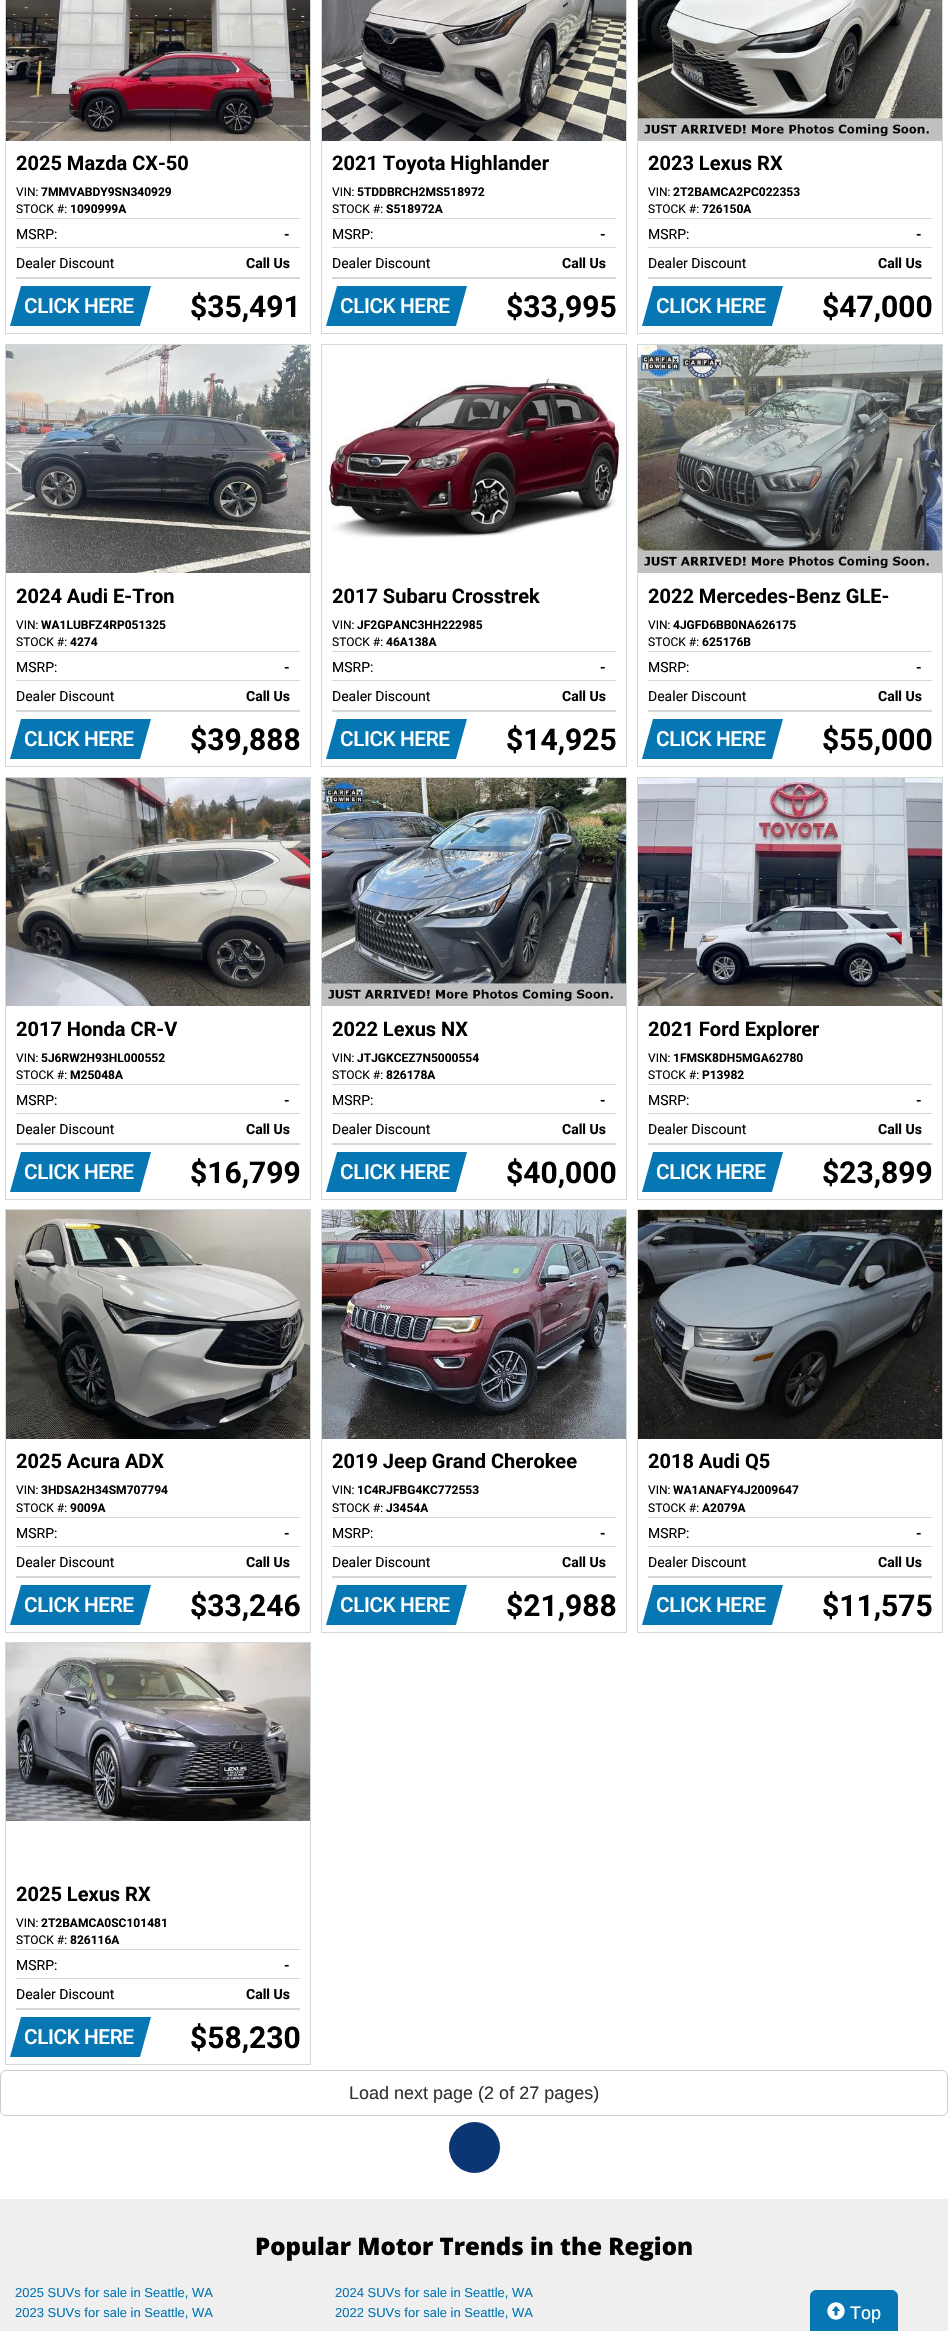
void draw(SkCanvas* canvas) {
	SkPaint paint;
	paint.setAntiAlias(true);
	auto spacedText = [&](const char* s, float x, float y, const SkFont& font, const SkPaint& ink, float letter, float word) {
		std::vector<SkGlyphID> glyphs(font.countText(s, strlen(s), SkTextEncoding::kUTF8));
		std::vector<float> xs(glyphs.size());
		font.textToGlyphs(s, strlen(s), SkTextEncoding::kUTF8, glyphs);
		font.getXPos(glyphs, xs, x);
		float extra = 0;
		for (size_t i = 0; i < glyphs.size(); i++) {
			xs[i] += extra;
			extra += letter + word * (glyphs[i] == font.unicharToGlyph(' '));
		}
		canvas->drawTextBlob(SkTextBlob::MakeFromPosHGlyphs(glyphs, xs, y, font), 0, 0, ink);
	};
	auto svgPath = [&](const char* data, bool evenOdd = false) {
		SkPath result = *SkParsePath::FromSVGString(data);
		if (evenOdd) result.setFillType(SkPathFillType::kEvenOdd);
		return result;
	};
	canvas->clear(0xffffffff);
	paint.setStroke(true);
	paint.setStrokeWidth(1);
	paint.setColor(0xffd4d8d9);
	canvas->drawRect(SkRect::MakeXYWH(5.5, -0.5, 305, 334), paint);
	canvas->drawImageRect(SkImages::DeferredFromEncodedData(SkData::MakeFromFileName("img1.png")), SkRect::MakeXYWH(6, 0, 304, 141), SkSamplingOptions());
	SkFont f1(fontMgr->matchFamilyStyle("Roboto", SkFontStyle::Bold()), 20);
	f1.setSubpixel(true);
	paint.setStroke(false);
	paint.setColor(0xff000000);
	canvas->drawString("2025 Mazda CX-50", 16, 170, f1, paint);
	SkFont f2(fontMgr->matchFamilyStyle("Roboto", SkFontStyle::Normal()), 12);
	f2.setSubpixel(true);
	canvas->drawString("VIN:", 16, 196, f2, paint);
	SkFont f3(fontMgr->matchFamilyStyle("Roboto", SkFontStyle::Bold()), 12);
	f3.setSubpixel(true);
	canvas->drawString("7MMVABDY9SN340929", 41, 196, f3, paint);
	canvas->drawString("STOCK #:", 16, 213, f2, paint);
	canvas->drawString("1090999A", 70, 213, f3, paint);
	paint.setColor(0xffd4d8d9);
	canvas->drawRect(SkRect::MakeXYWH(16, 218, 284, 1), paint);
	canvas->drawRect(SkRect::MakeXYWH(16, 247, 284, 1), paint);
	SkFont f4(fontMgr->matchFamilyStyle("Roboto", SkFontStyle::Normal()), 14);
	f4.setSubpixel(true);
	paint.setColor(0xff000000);
	canvas->drawString("MSRP:", 16, 239, f4, paint);
	SkFont f5(fontMgr->matchFamilyStyle("Roboto", SkFontStyle::Bold()), 14);
	f5.setSubpixel(true);
	canvas->drawString("-", 284, 239, f5, paint);
	paint.setColor(0xffd4d8d9);
	canvas->drawRect(SkRect::MakeXYWH(16, 277, 284, 2), paint);
	paint.setColor(0xff000000);
	canvas->drawString("Dealer Discount", 16, 268, f4, paint);
	canvas->drawString("Call Us", 246, 268, f5, paint);
	paint.setColor(0xff0777b3);
	canvas->drawPath(svgPath("M21 286H151L140 326H10Z"), paint);
	SkFont f6(fontMgr->matchFamilyStyle("Roboto", SkFontStyle(500, SkFontStyle::kNormal_Width, SkFontStyle::kUpright_Slant)), 20.75);
	f6.setSubpixel(true);
	paint.setColor(0xffffffff);
	spacedText("CLICK HERE", 24, 313, f6, paint, -0.4, 0);
	SkFont f7(fontMgr->matchFamilyStyle("Roboto", SkFontStyle::Bold()), 30);
	f7.setSubpixel(true);
	paint.setColor(0xff000000);
	canvas->drawString("$35,491", 190, 317, f7, paint);
	paint.setStroke(true);
	paint.setColor(0xffd4d8d9);
	canvas->drawRect(SkRect::MakeXYWH(321.5, -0.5, 305, 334), paint);
	canvas->drawImageRect(SkImages::DeferredFromEncodedData(SkData::MakeFromFileName("img2.png")), SkRect::MakeXYWH(322, 0, 304, 141), SkSamplingOptions());
	canvas->save();
	canvas->clipRect(SkRect::MakeXYWH(332, 152, 217, 22));
	paint.setStroke(false);
	paint.setColor(0xff000000);
	canvas->drawString("2021 Toyota Highlander", 332, 170, f1, paint);
	canvas->restore();
	canvas->drawString("VIN:", 332, 196, f2, paint);
	canvas->drawString("5TDDBRCH2MS518972", 357, 196, f3, paint);
	canvas->drawString("STOCK #:", 332, 213, f2, paint);
	canvas->drawString("S518972A", 386, 213, f3, paint);
	paint.setColor(0xffd4d8d9);
	canvas->drawRect(SkRect::MakeXYWH(332, 218, 284, 1), paint);
	canvas->drawRect(SkRect::MakeXYWH(332, 247, 284, 1), paint);
	paint.setColor(0xff000000);
	canvas->drawString("MSRP:", 332, 239, f4, paint);
	canvas->drawString("-", 600, 239, f5, paint);
	paint.setColor(0xffd4d8d9);
	canvas->drawRect(SkRect::MakeXYWH(332, 277, 284, 2), paint);
	paint.setColor(0xff000000);
	canvas->drawString("Dealer Discount", 332, 268, f4, paint);
	canvas->drawString("Call Us", 562, 268, f5, paint);
	paint.setColor(0xff0777b3);
	canvas->drawPath(svgPath("M337 286H467L456 326H326Z"), paint);
	paint.setColor(0xffffffff);
	spacedText("CLICK HERE", 340, 313, f6, paint, -0.4, 0);
	paint.setColor(0xff000000);
	canvas->drawString("$33,995", 506, 317, f7, paint);
	paint.setStroke(true);
	paint.setColor(0xffd4d8d9);
	canvas->drawRect(SkRect::MakeXYWH(637.5, -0.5, 305, 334), paint);
	canvas->drawImageRect(SkImages::DeferredFromEncodedData(SkData::MakeFromFileName("img3.png")), SkRect::MakeXYWH(638, 0, 304, 141), SkSamplingOptions());
	paint.setStroke(false);
	paint.setColor(0xff000000);
	canvas->drawString("2023 Lexus RX", 648, 170, f1, paint);
	canvas->drawString("VIN:", 648, 196, f2, paint);
	canvas->drawString("2T2BAMCA2PC022353", 673, 196, f3, paint);
	canvas->drawString("STOCK #:", 648, 213, f2, paint);
	canvas->drawString("726150A", 702, 213, f3, paint);
	paint.setColor(0xffd4d8d9);
	canvas->drawRect(SkRect::MakeXYWH(648, 218, 284, 1), paint);
	canvas->drawRect(SkRect::MakeXYWH(648, 247, 284, 1), paint);
	paint.setColor(0xff000000);
	canvas->drawString("MSRP:", 648, 239, f4, paint);
	canvas->drawString("-", 916, 239, f5, paint);
	paint.setColor(0xffd4d8d9);
	canvas->drawRect(SkRect::MakeXYWH(648, 277, 284, 2), paint);
	paint.setColor(0xff000000);
	canvas->drawString("Dealer Discount", 648, 268, f4, paint);
	canvas->drawString("Call Us", 878, 268, f5, paint);
	paint.setColor(0xff0777b3);
	canvas->drawPath(svgPath("M653 286H783L772 326H642Z"), paint);
	paint.setColor(0xffffffff);
	spacedText("CLICK HERE", 656, 313, f6, paint, -0.4, 0);
	paint.setColor(0xff000000);
	canvas->drawString("$47,000", 822, 317, f7, paint);
	paint.setStroke(true);
	paint.setColor(0xffd4d8d9);
	canvas->drawRect(SkRect::MakeXYWH(5.5, 344.5, 305, 422), paint);
	canvas->drawImageRect(SkImages::DeferredFromEncodedData(SkData::MakeFromFileName("img4.png")), SkRect::MakeXYWH(6, 345, 304, 228), SkSamplingOptions());
	paint.setStroke(false);
	paint.setColor(0xff000000);
	canvas->drawString("2024 Audi E-Tron", 16, 603, f1, paint);
	canvas->drawString("VIN:", 16, 629, f2, paint);
	canvas->drawString("WA1LUBFZ4RP051325", 41, 629, f3, paint);
	canvas->drawString("STOCK #:", 16, 646, f2, paint);
	canvas->drawString("4274", 70, 646, f3, paint);
	paint.setColor(0xffd4d8d9);
	canvas->drawRect(SkRect::MakeXYWH(16, 651, 284, 1), paint);
	canvas->drawRect(SkRect::MakeXYWH(16, 680, 284, 1), paint);
	paint.setColor(0xff000000);
	canvas->drawString("MSRP:", 16, 672, f4, paint);
	canvas->drawString("-", 284, 672, f5, paint);
	paint.setColor(0xffd4d8d9);
	canvas->drawRect(SkRect::MakeXYWH(16, 710, 284, 2), paint);
	paint.setColor(0xff000000);
	canvas->drawString("Dealer Discount", 16, 701, f4, paint);
	canvas->drawString("Call Us", 246, 701, f5, paint);
	paint.setColor(0xff0777b3);
	canvas->drawPath(svgPath("M21 719H151L140 759H10Z"), paint);
	paint.setColor(0xffffffff);
	spacedText("CLICK HERE", 24, 746, f6, paint, -0.4, 0);
	paint.setColor(0xff000000);
	canvas->drawString("$39,888", 190, 750, f7, paint);
	paint.setStroke(true);
	paint.setColor(0xffd4d8d9);
	canvas->drawRect(SkRect::MakeXYWH(321.5, 344.5, 305, 422), paint);
	canvas->drawImageRect(SkImages::DeferredFromEncodedData(SkData::MakeFromFileName("img5.png")), SkRect::MakeXYWH(326, 375, 300, 163), SkSamplingOptions());
	paint.setStroke(false);
	paint.setColor(0xff000000);
	canvas->drawString("2017 Subaru Crosstrek", 332, 603, f1, paint);
	canvas->drawString("VIN:", 332, 629, f2, paint);
	canvas->drawString("JF2GPANC3HH222985", 357, 629, f3, paint);
	canvas->drawString("STOCK #:", 332, 646, f2, paint);
	canvas->drawString("46A138A", 386, 646, f3, paint);
	paint.setColor(0xffd4d8d9);
	canvas->drawRect(SkRect::MakeXYWH(332, 651, 284, 1), paint);
	canvas->drawRect(SkRect::MakeXYWH(332, 680, 284, 1), paint);
	paint.setColor(0xff000000);
	canvas->drawString("MSRP:", 332, 672, f4, paint);
	canvas->drawString("-", 600, 672, f5, paint);
	paint.setColor(0xffd4d8d9);
	canvas->drawRect(SkRect::MakeXYWH(332, 710, 284, 2), paint);
	paint.setColor(0xff000000);
	canvas->drawString("Dealer Discount", 332, 701, f4, paint);
	canvas->drawString("Call Us", 562, 701, f5, paint);
	paint.setColor(0xff0777b3);
	canvas->drawPath(svgPath("M337 719H467L456 759H326Z"), paint);
	paint.setColor(0xffffffff);
	spacedText("CLICK HERE", 340, 746, f6, paint, -0.4, 0);
	paint.setColor(0xff000000);
	canvas->drawString("$14,925", 506, 750, f7, paint);
	paint.setStroke(true);
	paint.setColor(0xffd4d8d9);
	canvas->drawRect(SkRect::MakeXYWH(637.5, 344.5, 305, 422), paint);
	canvas->drawImageRect(SkImages::DeferredFromEncodedData(SkData::MakeFromFileName("img6.png")), SkRect::MakeXYWH(638, 345, 304, 228), SkSamplingOptions());
	paint.setStroke(false);
	paint.setColor(0xff000000);
	canvas->drawString("2022 Mercedes-Benz GLE-", 648, 603, f1, paint);
	canvas->drawString("VIN:", 648, 629, f2, paint);
	canvas->drawString("4JGFD6BB0NA626175", 673, 629, f3, paint);
	canvas->drawString("STOCK #:", 648, 646, f2, paint);
	canvas->drawString("625176B", 702, 646, f3, paint);
	paint.setColor(0xffd4d8d9);
	canvas->drawRect(SkRect::MakeXYWH(648, 651, 284, 1), paint);
	canvas->drawRect(SkRect::MakeXYWH(648, 680, 284, 1), paint);
	paint.setColor(0xff000000);
	canvas->drawString("MSRP:", 648, 672, f4, paint);
	canvas->drawString("-", 916, 672, f5, paint);
	paint.setColor(0xffd4d8d9);
	canvas->drawRect(SkRect::MakeXYWH(648, 710, 284, 2), paint);
	paint.setColor(0xff000000);
	canvas->drawString("Dealer Discount", 648, 701, f4, paint);
	canvas->drawString("Call Us", 878, 701, f5, paint);
	paint.setColor(0xff0777b3);
	canvas->drawPath(svgPath("M653 719H783L772 759H642Z"), paint);
	paint.setColor(0xffffffff);
	spacedText("CLICK HERE", 656, 746, f6, paint, -0.4, 0);
	paint.setColor(0xff000000);
	canvas->drawString("$55,000", 822, 750, f7, paint);
	paint.setStroke(true);
	paint.setColor(0xffd4d8d9);
	canvas->drawRect(SkRect::MakeXYWH(5.5, 777.5, 305, 422), paint);
	canvas->drawImageRect(SkImages::DeferredFromEncodedData(SkData::MakeFromFileName("img7.png")), SkRect::MakeXYWH(6, 778, 304, 228), SkSamplingOptions());
	paint.setStroke(false);
	paint.setColor(0xff000000);
	canvas->drawString("2017 Honda CR-V", 16, 1036, f1, paint);
	canvas->drawString("VIN:", 16, 1062, f2, paint);
	canvas->drawString("5J6RW2H93HL000552", 41, 1062, f3, paint);
	canvas->drawString("STOCK #:", 16, 1079, f2, paint);
	canvas->drawString("M25048A", 70, 1079, f3, paint);
	paint.setColor(0xffd4d8d9);
	canvas->drawRect(SkRect::MakeXYWH(16, 1084, 284, 1), paint);
	canvas->drawRect(SkRect::MakeXYWH(16, 1113, 284, 1), paint);
	paint.setColor(0xff000000);
	canvas->drawString("MSRP:", 16, 1105, f4, paint);
	canvas->drawString("-", 284, 1105, f5, paint);
	paint.setColor(0xffd4d8d9);
	canvas->drawRect(SkRect::MakeXYWH(16, 1143, 284, 2), paint);
	paint.setColor(0xff000000);
	canvas->drawString("Dealer Discount", 16, 1134, f4, paint);
	canvas->drawString("Call Us", 246, 1134, f5, paint);
	paint.setColor(0xff0777b3);
	canvas->drawPath(svgPath("M21 1152H151L140 1192H10Z"), paint);
	paint.setColor(0xffffffff);
	spacedText("CLICK HERE", 24, 1179, f6, paint, -0.4, 0);
	paint.setColor(0xff000000);
	canvas->drawString("$16,799", 190, 1183, f7, paint);
	paint.setStroke(true);
	paint.setColor(0xffd4d8d9);
	canvas->drawRect(SkRect::MakeXYWH(321.5, 777.5, 305, 422), paint);
	canvas->drawImageRect(SkImages::DeferredFromEncodedData(SkData::MakeFromFileName("img8.png")), SkRect::MakeXYWH(322, 778, 304, 228), SkSamplingOptions());
	paint.setStroke(false);
	paint.setColor(0xff000000);
	canvas->drawString("2022 Lexus NX", 332, 1036, f1, paint);
	canvas->drawString("VIN:", 332, 1062, f2, paint);
	canvas->drawString("JTJGKCEZ7N5000554", 357, 1062, f3, paint);
	canvas->drawString("STOCK #:", 332, 1079, f2, paint);
	canvas->drawString("826178A", 386, 1079, f3, paint);
	paint.setColor(0xffd4d8d9);
	canvas->drawRect(SkRect::MakeXYWH(332, 1084, 284, 1), paint);
	canvas->drawRect(SkRect::MakeXYWH(332, 1113, 284, 1), paint);
	paint.setColor(0xff000000);
	canvas->drawString("MSRP:", 332, 1105, f4, paint);
	canvas->drawString("-", 600, 1105, f5, paint);
	paint.setColor(0xffd4d8d9);
	canvas->drawRect(SkRect::MakeXYWH(332, 1143, 284, 2), paint);
	paint.setColor(0xff000000);
	canvas->drawString("Dealer Discount", 332, 1134, f4, paint);
	canvas->drawString("Call Us", 562, 1134, f5, paint);
	paint.setColor(0xff0777b3);
	canvas->drawPath(svgPath("M337 1152H467L456 1192H326Z"), paint);
	paint.setColor(0xffffffff);
	spacedText("CLICK HERE", 340, 1179, f6, paint, -0.4, 0);
	paint.setColor(0xff000000);
	canvas->drawString("$40,000", 506, 1183, f7, paint);
	paint.setStroke(true);
	paint.setColor(0xffd4d8d9);
	canvas->drawRect(SkRect::MakeXYWH(637.5, 777.5, 305, 422), paint);
	canvas->drawImageRect(SkImages::DeferredFromEncodedData(SkData::MakeFromFileName("img9.png")), SkRect::MakeXYWH(638, 778, 304, 228), SkSamplingOptions());
	paint.setStroke(false);
	paint.setColor(0xff000000);
	canvas->drawString("2021 Ford Explorer", 648, 1036, f1, paint);
	canvas->drawString("VIN:", 648, 1062, f2, paint);
	canvas->drawString("1FMSK8DH5MGA62780", 673, 1062, f3, paint);
	canvas->drawString("STOCK #:", 648, 1079, f2, paint);
	canvas->drawString("P13982", 702, 1079, f3, paint);
	paint.setColor(0xffd4d8d9);
	canvas->drawRect(SkRect::MakeXYWH(648, 1084, 284, 1), paint);
	canvas->drawRect(SkRect::MakeXYWH(648, 1113, 284, 1), paint);
	paint.setColor(0xff000000);
	canvas->drawString("MSRP:", 648, 1105, f4, paint);
	canvas->drawString("-", 916, 1105, f5, paint);
	paint.setColor(0xffd4d8d9);
	canvas->drawRect(SkRect::MakeXYWH(648, 1143, 284, 2), paint);
	paint.setColor(0xff000000);
	canvas->drawString("Dealer Discount", 648, 1134, f4, paint);
	canvas->drawString("Call Us", 878, 1134, f5, paint);
	paint.setColor(0xff0777b3);
	canvas->drawPath(svgPath("M653 1152H783L772 1192H642Z"), paint);
	paint.setColor(0xffffffff);
	spacedText("CLICK HERE", 656, 1179, f6, paint, -0.4, 0);
	paint.setColor(0xff000000);
	canvas->drawString("$23,899", 822, 1183, f7, paint);
	paint.setStroke(true);
	paint.setColor(0xffd4d8d9);
	canvas->drawRect(SkRect::MakeXYWH(5.5, 1209.5, 305, 423), paint);
	canvas->drawImageRect(SkImages::DeferredFromEncodedData(SkData::MakeFromFileName("img10.png")), SkRect::MakeXYWH(6, 1210, 304, 229), SkSamplingOptions());
	paint.setStroke(false);
	paint.setColor(0xff000000);
	canvas->drawString("2025 Acura ADX", 16, 1468, f1, paint);
	canvas->drawString("VIN:", 16, 1494, f2, paint);
	canvas->drawString("3HDSA2H34SM707794", 41, 1494, f3, paint);
	canvas->drawString("STOCK #:", 16, 1512, f2, paint);
	canvas->drawString("9009A", 70, 1512, f3, paint);
	paint.setColor(0xffd4d8d9);
	canvas->drawRect(SkRect::MakeXYWH(16, 1517, 284, 1), paint);
	canvas->drawRect(SkRect::MakeXYWH(16, 1546, 284, 1), paint);
	paint.setColor(0xff000000);
	canvas->drawString("MSRP:", 16, 1538, f4, paint);
	canvas->drawString("-", 284, 1538, f5, paint);
	paint.setColor(0xffd4d8d9);
	canvas->drawRect(SkRect::MakeXYWH(16, 1576, 284, 2), paint);
	paint.setColor(0xff000000);
	canvas->drawString("Dealer Discount", 16, 1567, f4, paint);
	canvas->drawString("Call Us", 246, 1567, f5, paint);
	paint.setColor(0xff0777b3);
	canvas->drawPath(svgPath("M21 1585H151L140 1625H10Z"), paint);
	paint.setColor(0xffffffff);
	spacedText("CLICK HERE", 24, 1612, f6, paint, -0.4, 0);
	paint.setColor(0xff000000);
	canvas->drawString("$33,246", 190, 1616, f7, paint);
	paint.setStroke(true);
	paint.setColor(0xffd4d8d9);
	canvas->drawRect(SkRect::MakeXYWH(321.5, 1209.5, 305, 423), paint);
	canvas->drawImageRect(SkImages::DeferredFromEncodedData(SkData::MakeFromFileName("img11.png")), SkRect::MakeXYWH(322, 1210, 304, 229), SkSamplingOptions());
	paint.setStroke(false);
	paint.setColor(0xff000000);
	canvas->drawString("2019 Jeep Grand Cherokee", 332, 1468, f1, paint);
	canvas->drawString("VIN:", 332, 1494, f2, paint);
	canvas->drawString("1C4RJFBG4KC772553", 357, 1494, f3, paint);
	canvas->drawString("STOCK #:", 332, 1512, f2, paint);
	canvas->drawString("J3454A", 386, 1512, f3, paint);
	paint.setColor(0xffd4d8d9);
	canvas->drawRect(SkRect::MakeXYWH(332, 1517, 284, 1), paint);
	canvas->drawRect(SkRect::MakeXYWH(332, 1546, 284, 1), paint);
	paint.setColor(0xff000000);
	canvas->drawString("MSRP:", 332, 1538, f4, paint);
	canvas->drawString("-", 600, 1538, f5, paint);
	paint.setColor(0xffd4d8d9);
	canvas->drawRect(SkRect::MakeXYWH(332, 1576, 284, 2), paint);
	paint.setColor(0xff000000);
	canvas->drawString("Dealer Discount", 332, 1567, f4, paint);
	canvas->drawString("Call Us", 562, 1567, f5, paint);
	paint.setColor(0xff0777b3);
	canvas->drawPath(svgPath("M337 1585H467L456 1625H326Z"), paint);
	paint.setColor(0xffffffff);
	spacedText("CLICK HERE", 340, 1612, f6, paint, -0.4, 0);
	paint.setColor(0xff000000);
	canvas->drawString("$21,988", 506, 1616, f7, paint);
	paint.setStroke(true);
	paint.setColor(0xffd4d8d9);
	canvas->drawRect(SkRect::MakeXYWH(637.5, 1209.5, 305, 423), paint);
	canvas->drawImageRect(SkImages::DeferredFromEncodedData(SkData::MakeFromFileName("img12.png")), SkRect::MakeXYWH(638, 1210, 304, 229), SkSamplingOptions());
	paint.setStroke(false);
	paint.setColor(0xff000000);
	canvas->drawString("2018 Audi Q5", 648, 1468, f1, paint);
	canvas->drawString("VIN:", 648, 1494, f2, paint);
	canvas->drawString("WA1ANAFY4J2009647", 673, 1494, f3, paint);
	canvas->drawString("STOCK #:", 648, 1512, f2, paint);
	canvas->drawString("A2079A", 702, 1512, f3, paint);
	paint.setColor(0xffd4d8d9);
	canvas->drawRect(SkRect::MakeXYWH(648, 1517, 284, 1), paint);
	canvas->drawRect(SkRect::MakeXYWH(648, 1546, 284, 1), paint);
	paint.setColor(0xff000000);
	canvas->drawString("MSRP:", 648, 1538, f4, paint);
	canvas->drawString("-", 916, 1538, f5, paint);
	paint.setColor(0xffd4d8d9);
	canvas->drawRect(SkRect::MakeXYWH(648, 1576, 284, 2), paint);
	paint.setColor(0xff000000);
	canvas->drawString("Dealer Discount", 648, 1567, f4, paint);
	canvas->drawString("Call Us", 878, 1567, f5, paint);
	paint.setColor(0xff0777b3);
	canvas->drawPath(svgPath("M653 1585H783L772 1625H642Z"), paint);
	paint.setColor(0xffffffff);
	spacedText("CLICK HERE", 656, 1612, f6, paint, -0.4, 0);
	paint.setColor(0xff000000);
	canvas->drawString("$11,575", 822, 1616, f7, paint);
	paint.setStroke(true);
	paint.setColor(0xffd4d8d9);
	canvas->drawRect(SkRect::MakeXYWH(5.5, 1642.5, 305, 422), paint);
	canvas->drawImageRect(SkImages::DeferredFromEncodedData(SkData::MakeFromFileName("img13.png")), SkRect::MakeXYWH(6, 1643, 304, 178), SkSamplingOptions());
	paint.setStroke(false);
	paint.setColor(0xff000000);
	canvas->drawString("2025 Lexus RX", 16, 1901, f1, paint);
	canvas->drawString("VIN:", 16, 1927, f2, paint);
	canvas->drawString("2T2BAMCA0SC101481", 41, 1927, f3, paint);
	canvas->drawString("STOCK #:", 16, 1944, f2, paint);
	canvas->drawString("826116A", 70, 1944, f3, paint);
	paint.setColor(0xffd4d8d9);
	canvas->drawRect(SkRect::MakeXYWH(16, 1949, 284, 1), paint);
	canvas->drawRect(SkRect::MakeXYWH(16, 1978, 284, 1), paint);
	paint.setColor(0xff000000);
	canvas->drawString("MSRP:", 16, 1970, f4, paint);
	canvas->drawString("-", 284, 1970, f5, paint);
	paint.setColor(0xffd4d8d9);
	canvas->drawRect(SkRect::MakeXYWH(16, 2008, 284, 2), paint);
	paint.setColor(0xff000000);
	canvas->drawString("Dealer Discount", 16, 1999, f4, paint);
	canvas->drawString("Call Us", 246, 1999, f5, paint);
	paint.setColor(0xff0777b3);
	canvas->drawPath(svgPath("M21 2017H151L140 2057H10Z"), paint);
	paint.setColor(0xffffffff);
	spacedText("CLICK HERE", 24, 2044, f6, paint, -0.4, 0);
	paint.setColor(0xff000000);
	canvas->drawString("$58,230", 190, 2048, f7, paint);
	paint.setStroke(true);
	paint.setColor(0xffcccccc);
	canvas->drawRoundRect(SkRect::MakeXYWH(0.5, 2070.5, 947, 45), 5.5, 5.5, paint);
	SkFont f8(fontMgr->matchFamilyStyle("Liberation Sans", SkFontStyle::Normal()), 18);
	f8.setSubpixel(true);
	paint.setStroke(false);
	paint.setColor(0xff333333);
	canvas->drawString("Load next page (2 of 27 pages)", 349, 2099, f8, paint);
	paint.setColor(0xff0b3573);
	canvas->drawCircle(474.5, 2147.5, 25.5, paint);
	paint.setColor(0xffefefef);
	canvas->drawRect(SkRect::MakeXYWH(0, 2199, 948, 132), paint);
	paint.setColor(0xff0777b3);
	canvas->drawRoundRect(SkRect::MakeXYWH(810.5, 2290.5, 87, 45), 5.5, 5.5, paint);
	paint.setStroke(true);
	canvas->drawRoundRect(SkRect::MakeXYWH(810.5, 2290.5, 87, 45), 5.5, 5.5, paint);
	canvas->drawImageRect(SkImages::DeferredFromEncodedData(SkData::MakeFromFileName("img14.png")), SkRect::MakeXYWH(827, 2302, 18, 18), SkSamplingOptions());
	paint.setStroke(false);
	paint.setColor(0xffffffff);
	canvas->drawString("Top", 850, 2319, f8, paint);
	SkFont f9(fontMgr->matchFamilyStyle("Open Sans", SkFontStyle(800, SkFontStyle::kNormal_Width, SkFontStyle::kUpright_Slant)), 24);
	f9.setSubpixel(true);
	paint.setColor(0xff000000);
	canvas->drawString("Popular Motor Trends in the Region", 255, 2255, f9, paint);
	SkFont f10(fontMgr->matchFamilyStyle("Liberation Sans", SkFontStyle::Normal()), 13);
	f10.setSubpixel(true);
	paint.setColor(0xff0777b3);
	canvas->drawString("2025 SUVs for sale in Seattle, WA", 15, 2297, f10, paint);
	canvas->drawString("2024 SUVs for sale in Seattle, WA", 335, 2297, f10, paint);
	canvas->drawString("2023 SUVs for sale in Seattle, WA", 15, 2317, f10, paint);
	canvas->drawString("2022 SUVs for sale in Seattle, WA", 335, 2317, f10, paint);
}
